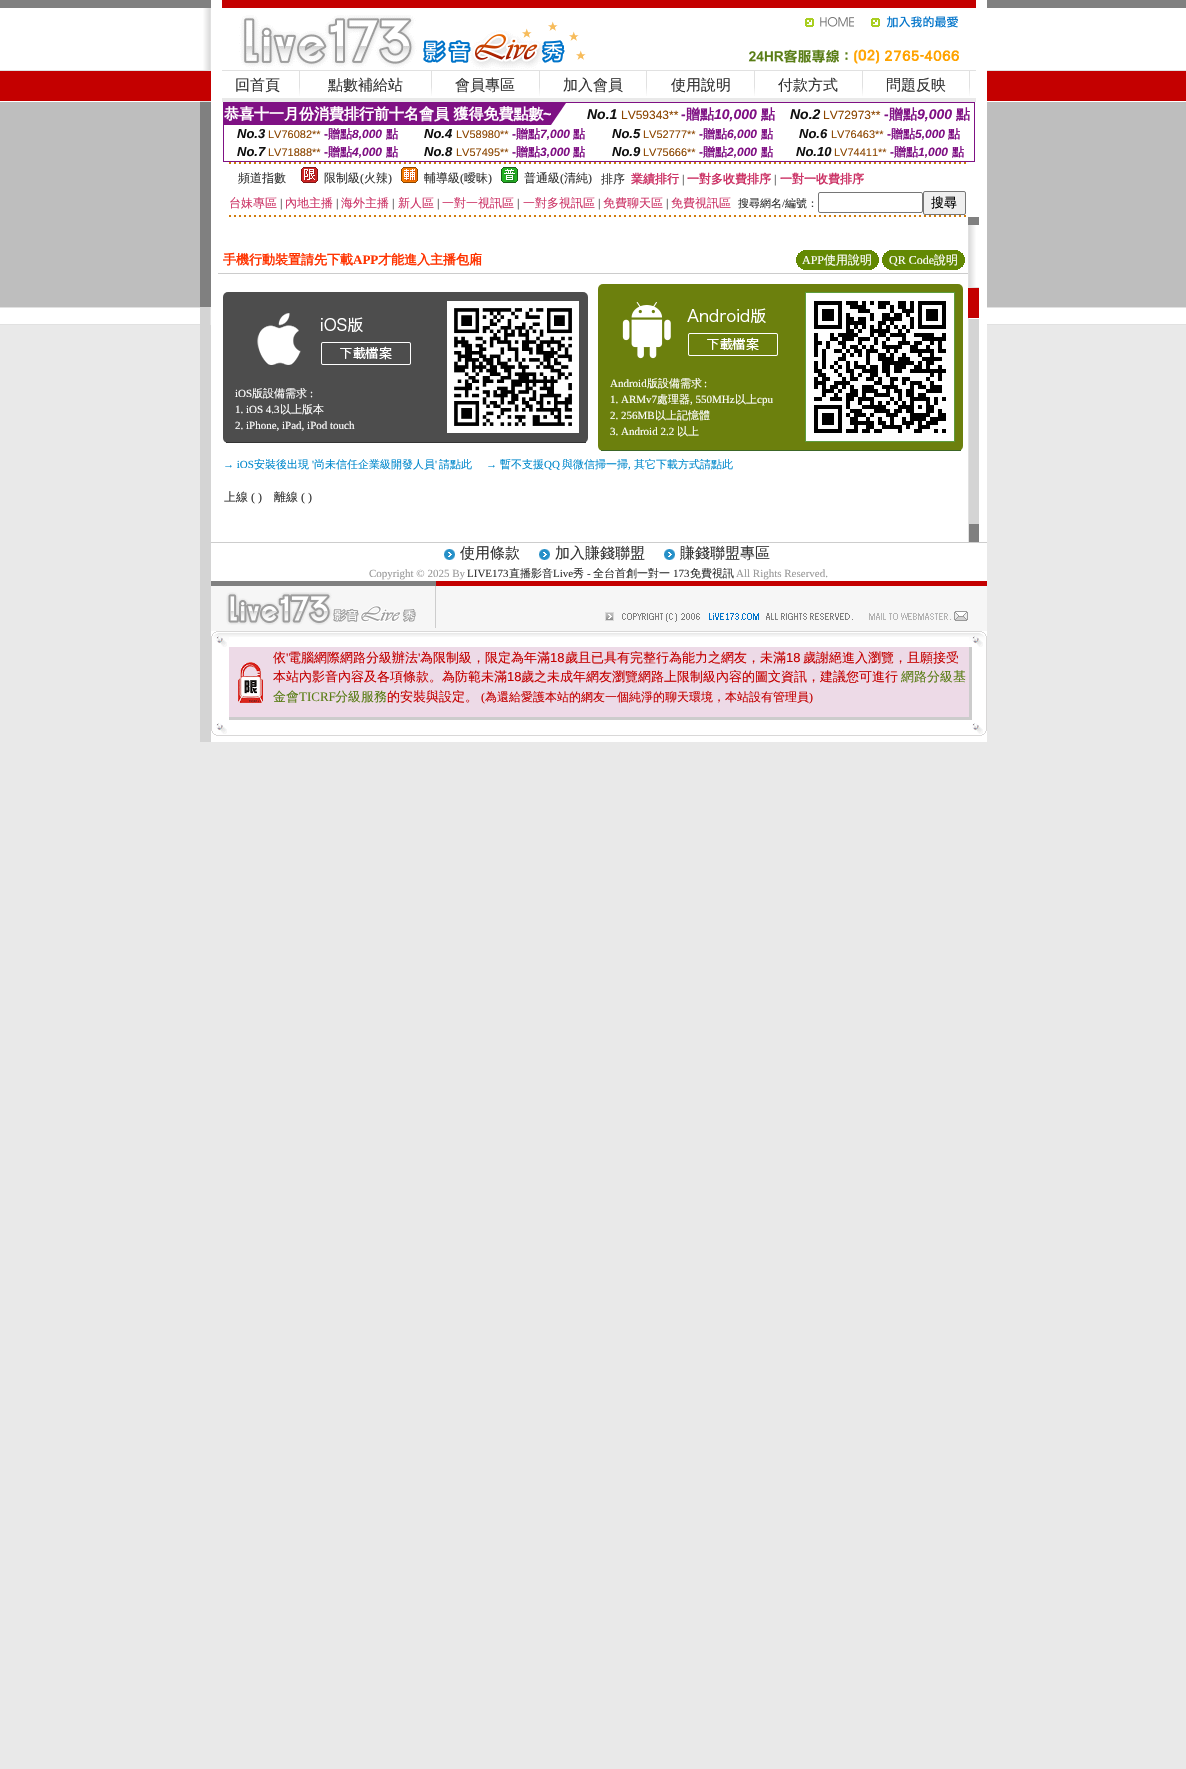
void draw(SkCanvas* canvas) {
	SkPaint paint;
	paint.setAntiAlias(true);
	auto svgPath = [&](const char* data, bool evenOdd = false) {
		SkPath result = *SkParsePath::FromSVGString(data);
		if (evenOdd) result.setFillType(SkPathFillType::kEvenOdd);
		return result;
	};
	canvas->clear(0xffffffff);
	canvas->drawImageRect(SkImages::DeferredFromEncodedData(SkData::MakeFromFileName("img1.png")), SkRect::MakeXYWH(0, 0, 1186, 1769), SkSamplingOptions());
	paint.setColor(0xffd4d4d4);
	canvas->drawRect(SkRect::MakeXYWH(200, 325, 11, 417), paint);
	canvas->drawImageRect(SkImages::DeferredFromEncodedData(SkData::MakeFromFileName("img2.png")), SkRect::MakeXYWH(200, 0, 11, 325), SkSamplingOptions());
	paint.setColor(0xffffffff);
	canvas->drawRect(SkRect::MakeXYWH(211, 0, 776, 742), paint);
	paint.setColor(0xffc40000);
	canvas->drawRect(SkRect::MakeXYWH(222, 0, 754, 8), paint);
	canvas->drawImageRect(SkImages::DeferredFromEncodedData(SkData::MakeFromFileName("img3.png")), SkRect::MakeXYWH(239, 15, 347, 55), SkSamplingOptions());
	canvas->drawImageRect(SkImages::DeferredFromEncodedData(SkData::MakeFromFileName("img4.png")), SkRect::MakeXYWH(805, 17, 49, 10), SkSamplingOptions());
	canvas->drawImageRect(SkImages::DeferredFromEncodedData(SkData::MakeFromFileName("img5.png")), SkRect::MakeXYWH(871, 16, 87, 12), SkSamplingOptions());
	canvas->drawImageRect(SkImages::DeferredFromEncodedData(SkData::MakeFromFileName("img6.png")), SkRect::MakeXYWH(748, 49, 211, 15), SkSamplingOptions());
	paint.setColor(0xffe1e1e1);
	canvas->drawRect(SkRect::MakeXYWH(222, 70, 754, 1), paint);
	SkFont f1(fontMgr->matchFamilyStyle("WenQuanYi Zen Hei", SkFontStyle(500, SkFontStyle::kNormal_Width, SkFontStyle::kUpright_Slant)), 15);
	f1.setSubpixel(true);
	paint.setColor(0xff333333);
	canvas->drawString("回首頁", 235, 90, f1, paint);
	canvas->drawImageRect(SkImages::DeferredFromEncodedData(SkData::MakeFromFileName("img7.png")), SkRect::MakeXYWH(299, 71, 1, 25), SkSamplingOptions());
	canvas->drawString("點數補給站", 328, 90, f1, paint);
	canvas->drawImageRect(SkImages::DeferredFromEncodedData(SkData::MakeFromFileName("img7.png")), SkRect::MakeXYWH(431, 71, 1, 25), SkSamplingOptions());
	canvas->drawString("會員專區", 455, 90, f1, paint);
	canvas->drawImageRect(SkImages::DeferredFromEncodedData(SkData::MakeFromFileName("img7.png")), SkRect::MakeXYWH(539, 71, 1, 25), SkSamplingOptions());
	canvas->drawString("加入會員", 563, 90, f1, paint);
	canvas->drawImageRect(SkImages::DeferredFromEncodedData(SkData::MakeFromFileName("img7.png")), SkRect::MakeXYWH(646, 71, 1, 25), SkSamplingOptions());
	canvas->drawString("使用說明", 671, 90, f1, paint);
	canvas->drawImageRect(SkImages::DeferredFromEncodedData(SkData::MakeFromFileName("img7.png")), SkRect::MakeXYWH(754, 71, 1, 25), SkSamplingOptions());
	canvas->drawString("付款方式", 778, 90, f1, paint);
	canvas->drawImageRect(SkImages::DeferredFromEncodedData(SkData::MakeFromFileName("img7.png")), SkRect::MakeXYWH(862, 71, 1, 25), SkSamplingOptions());
	canvas->drawString("問題反映", 886, 90, f1, paint);
	canvas->drawImageRect(SkImages::DeferredFromEncodedData(SkData::MakeFromFileName("img7.png")), SkRect::MakeXYWH(969, 71, 1, 25), SkSamplingOptions());
	paint.setColor(0xffe9e9e9);
	canvas->drawRect(SkRect::MakeXYWH(222, 98, 754, 4), paint);
	paint.setStroke(true);
	paint.setStrokeWidth(1);
	paint.setColor(0xff7f1184);
	canvas->drawRect(SkRect::MakeXYWH(223.5, 102.5, 751, 59), paint);
	paint.setStroke(false);
	canvas->drawRect(SkRect::MakeXYWH(224, 103, 327, 22), paint);
	SkFont f2(fontMgr->matchFamilyStyle("WenQuanYi Zen Hei", SkFontStyle::Bold()), 15);
	f2.setSubpixel(true);
	paint.setColor(0xffffffff);
	canvas->drawString("恭喜十一月份消費排行前十名會員 獲得免費點數", 224, 119, f2, paint);
	SkFont f3(fontMgr->matchFamilyStyle("Liberation Sans", SkFontStyle::Bold()), 15);
	f3.setSubpixel(true);
	canvas->drawString("~", 543, 119, f3, paint);
	paint.setColor(0xff7e1184);
	canvas->drawPath(svgPath("M551 103H566L551 125Z"), paint);
	SkFont f4(fontMgr->matchFamilyStyle("Liberation Sans", SkFontStyle::BoldItalic()), 14);
	f4.setSubpixel(true);
	paint.setColor(0xff111111);
	canvas->drawString("No.1", 587, 119, f4, paint);
	SkFont f5(fontMgr->matchFamilyStyle("Liberation Sans", SkFontStyle::Normal()), 12);
	f5.setSubpixel(true);
	paint.setColor(0xff8c4600);
	canvas->drawString("LV59343**", 621, 119, f5, paint);
	SkFont f6(fontMgr->matchFamilyStyle("Liberation Sans", SkFontStyle::Bold()), 14);
	f6.setSubpixel(true);
	paint.setColor(0xff7f1184);
	canvas->drawString("-", 681, 119, f6, paint);
	SkFont f7(fontMgr->matchFamilyStyle("WenQuanYi Zen Hei", SkFontStyle::Bold()), 14);
	f7.setSubpixel(true);
	canvas->drawString("贈點", 686, 119, f7, paint);
	canvas->drawString("10,000", 714, 119, f4, paint);
	canvas->drawString("點", 761, 119, f7, paint);
	paint.setColor(0xff111111);
	canvas->drawString("No.2", 790, 119, f4, paint);
	paint.setColor(0xff8c4600);
	canvas->drawString("LV72973**", 823, 119, f5, paint);
	paint.setColor(0xff7f1184);
	canvas->drawString("-", 884, 119, f6, paint);
	canvas->drawString("贈點", 889, 119, f7, paint);
	canvas->drawString("9,000", 917, 119, f4, paint);
	canvas->drawString("點", 956, 119, f7, paint);
	SkFont f8(fontMgr->matchFamilyStyle("Liberation Sans", SkFontStyle::BoldItalic()), 13);
	f8.setSubpixel(true);
	paint.setColor(0xff111111);
	canvas->drawString("No.3", 237, 138, f8, paint);
	SkFont f9(fontMgr->matchFamilyStyle("Liberation Sans", SkFontStyle::Normal()), 11);
	f9.setSubpixel(true);
	paint.setColor(0xff8c4600);
	canvas->drawString("LV76082**", 268, 138, f9, paint);
	SkFont f10(fontMgr->matchFamilyStyle("Liberation Sans", SkFontStyle::Bold()), 12);
	f10.setSubpixel(true);
	paint.setColor(0xff7f1184);
	canvas->drawString("-", 324, 138, f10, paint);
	SkFont f11(fontMgr->matchFamilyStyle("WenQuanYi Zen Hei", SkFontStyle::Bold()), 12);
	f11.setSubpixel(true);
	canvas->drawString("贈點", 328, 138, f11, paint);
	SkFont f12(fontMgr->matchFamilyStyle("Liberation Sans", SkFontStyle::BoldItalic()), 12);
	f12.setSubpixel(true);
	canvas->drawString("8,000", 352, 138, f12, paint);
	canvas->drawString("點", 386, 138, f11, paint);
	paint.setColor(0xff111111);
	canvas->drawString("No.4", 424, 138, f8, paint);
	paint.setColor(0xff8c4600);
	canvas->drawString("LV58980**", 456, 138, f9, paint);
	paint.setColor(0xff7f1184);
	canvas->drawString("-", 512, 138, f10, paint);
	canvas->drawString("贈點", 516, 138, f11, paint);
	canvas->drawString("7,000", 540, 138, f12, paint);
	canvas->drawString("點", 573, 138, f11, paint);
	paint.setColor(0xff111111);
	canvas->drawString("No.5", 612, 138, f8, paint);
	paint.setColor(0xff8c4600);
	canvas->drawString("LV52777**", 643, 138, f9, paint);
	paint.setColor(0xff7f1184);
	canvas->drawString("-", 699, 138, f10, paint);
	canvas->drawString("贈點", 703, 138, f11, paint);
	canvas->drawString("6,000", 727, 138, f12, paint);
	canvas->drawString("點", 761, 138, f11, paint);
	paint.setColor(0xff111111);
	canvas->drawString("No.6", 799, 138, f8, paint);
	paint.setColor(0xff8c4600);
	canvas->drawString("LV76463**", 831, 138, f9, paint);
	paint.setColor(0xff7f1184);
	canvas->drawString("-", 887, 138, f10, paint);
	canvas->drawString("贈點", 891, 138, f11, paint);
	canvas->drawString("5,000", 915, 138, f12, paint);
	canvas->drawString("點", 948, 138, f11, paint);
	paint.setColor(0xff111111);
	canvas->drawString("No.7", 237, 156, f8, paint);
	paint.setColor(0xff8c4600);
	canvas->drawString("LV71888**", 268, 156, f9, paint);
	paint.setColor(0xff7f1184);
	canvas->drawString("-", 324, 156, f10, paint);
	canvas->drawString("贈點", 328, 156, f11, paint);
	canvas->drawString("4,000", 352, 156, f12, paint);
	canvas->drawString("點", 386, 156, f11, paint);
	paint.setColor(0xff111111);
	canvas->drawString("No.8", 424, 156, f8, paint);
	paint.setColor(0xff8c4600);
	canvas->drawString("LV57495**", 456, 156, f9, paint);
	paint.setColor(0xff7f1184);
	canvas->drawString("-", 512, 156, f10, paint);
	canvas->drawString("贈點", 516, 156, f11, paint);
	canvas->drawString("3,000", 540, 156, f12, paint);
	canvas->drawString("點", 573, 156, f11, paint);
	paint.setColor(0xff111111);
	canvas->drawString("No.9", 612, 156, f8, paint);
	paint.setColor(0xff8c4600);
	canvas->drawString("LV75666**", 643, 156, f9, paint);
	paint.setColor(0xff7f1184);
	canvas->drawString("-", 699, 156, f10, paint);
	canvas->drawString("贈點", 703, 156, f11, paint);
	canvas->drawString("2,000", 727, 156, f12, paint);
	canvas->drawString("點", 761, 156, f11, paint);
	paint.setColor(0xff111111);
	canvas->drawString("No.10", 796, 156, f8, paint);
	paint.setColor(0xff8c4600);
	canvas->drawString("LV74411**", 834, 156, f9, paint);
	paint.setColor(0xff7f1184);
	canvas->drawString("-", 890, 156, f10, paint);
	canvas->drawString("贈點", 894, 156, f11, paint);
	canvas->drawString("1,000", 918, 156, f12, paint);
	canvas->drawString("點", 952, 156, f11, paint);
	canvas->drawImageRect(SkImages::DeferredFromEncodedData(SkData::MakeFromFileName("img8.png")), SkRect::MakeXYWH(229, 162, 737, 2), SkSamplingOptions());
	SkFont f13(fontMgr->matchFamilyStyle("WenQuanYi Zen Hei", SkFontStyle(500, SkFontStyle::kNormal_Width, SkFontStyle::kUpright_Slant)), 12);
	f13.setSubpixel(true);
	paint.setColor(0xff333333);
	canvas->drawString("頻道指數", 238, 182, f13, paint);
	canvas->drawImageRect(SkImages::DeferredFromEncodedData(SkData::MakeFromFileName("img9.png")), SkRect::MakeXYWH(301, 167, 17, 16), SkSamplingOptions());
	canvas->drawString("限制級", 324, 182, f13, paint);
	SkFont f14(fontMgr->matchFamilyStyle("Liberation Serif", SkFontStyle::Normal()), 12);
	f14.setSubpixel(true);
	canvas->drawString("(", 360, 182, f14, paint);
	canvas->drawString("火辣", 364, 182, f13, paint);
	canvas->drawString(")", 388, 182, f14, paint);
	canvas->drawImageRect(SkImages::DeferredFromEncodedData(SkData::MakeFromFileName("img10.png")), SkRect::MakeXYWH(401, 167, 17, 16), SkSamplingOptions());
	canvas->drawString("輔導級", 424, 182, f13, paint);
	canvas->drawString("(", 460, 182, f14, paint);
	canvas->drawString("曖昧", 464, 182, f13, paint);
	canvas->drawString(")", 488, 182, f14, paint);
	canvas->drawImageRect(SkImages::DeferredFromEncodedData(SkData::MakeFromFileName("img11.png")), SkRect::MakeXYWH(501, 167, 17, 16), SkSamplingOptions());
	canvas->drawString("普通級", 524, 182, f13, paint);
	canvas->drawString("(", 560, 182, f14, paint);
	canvas->drawString("清純", 564, 182, f13, paint);
	canvas->drawString(")", 588, 182, f14, paint);
	canvas->drawString("排序", 601, 183, f13, paint);
	paint.setColor(0xffcc3366);
	canvas->drawString("業績排行", 631, 183, f11, paint);
	paint.setColor(0xff333333);
	canvas->drawString("|", 682, 183, f14, paint);
	paint.setColor(0xffcc3366);
	canvas->drawString("一對多收費排序", 687, 183, f11, paint);
	paint.setColor(0xff333333);
	canvas->drawString("|", 774, 183, f14, paint);
	paint.setColor(0xffcc3366);
	canvas->drawString("一對一收費排序", 780, 183, f11, paint);
	canvas->drawString("台妹專區", 229, 207, f13, paint);
	paint.setColor(0xff333333);
	canvas->drawString("|", 280, 207, f14, paint);
	paint.setColor(0xffcc3366);
	canvas->drawString("內地主播", 285, 207, f13, paint);
	paint.setColor(0xff333333);
	canvas->drawString("|", 336, 207, f14, paint);
	paint.setColor(0xffcc3366);
	canvas->drawString("海外主播", 341, 207, f13, paint);
	paint.setColor(0xff333333);
	canvas->drawString("|", 392, 207, f14, paint);
	paint.setColor(0xffcc3366);
	canvas->drawString("新人區", 398, 207, f13, paint);
	paint.setColor(0xff333333);
	canvas->drawString("|", 437, 207, f14, paint);
	paint.setColor(0xffcc3366);
	canvas->drawString("一對一視訊區", 442, 207, f13, paint);
	paint.setColor(0xff333333);
	canvas->drawString("|", 517, 207, f14, paint);
	paint.setColor(0xffcc3366);
	canvas->drawString("一對多視訊區", 523, 207, f13, paint);
	paint.setColor(0xff333333);
	canvas->drawString("|", 598, 207, f14, paint);
	paint.setColor(0xffcc3366);
	canvas->drawString("免費聊天區", 603, 207, f13, paint);
	paint.setColor(0xff333333);
	canvas->drawString("|", 666, 207, f14, paint);
	paint.setColor(0xffcc3366);
	canvas->drawString("免費視訊區", 671, 207, f13, paint);
	SkFont f15(fontMgr->matchFamilyStyle("WenQuanYi Zen Hei", SkFontStyle(500, SkFontStyle::kNormal_Width, SkFontStyle::kUpright_Slant)), 11);
	f15.setSubpixel(true);
	paint.setColor(0xff333333);
	canvas->drawString("搜尋網名", 738, 207, f15, paint);
	SkFont f16(fontMgr->matchFamilyStyle("Liberation Serif", SkFontStyle::Normal()), 11);
	f16.setSubpixel(true);
	canvas->drawString("/", 782, 207, f16, paint);
	canvas->drawString("編號：", 785, 207, f15, paint);
	paint.setStroke(true);
	paint.setColor(0xff767676);
	canvas->drawRoundRect(SkRect::MakeXYWH(818.5, 192.5, 104, 20), 1.5, 1.5, paint);
	paint.setStroke(false);
	paint.setColor(0xffefefef);
	canvas->drawRoundRect(SkRect::MakeXYWH(923.5, 191.5, 42, 23), 1.5, 1.5, paint);
	paint.setStroke(true);
	paint.setColor(0xff767676);
	canvas->drawRoundRect(SkRect::MakeXYWH(923.5, 191.5, 42, 23), 1.5, 1.5, paint);
	SkFont f17(fontMgr->matchFamilyStyle("WenQuanYi Zen Hei", SkFontStyle(500, SkFontStyle::kNormal_Width, SkFontStyle::kUpright_Slant)), 13);
	f17.setSubpixel(true);
	paint.setStroke(false);
	paint.setColor(0xff000000);
	canvas->drawString("搜尋", 931, 207, f17, paint);
	canvas->drawImageRect(SkImages::DeferredFromEncodedData(SkData::MakeFromFileName("img8.png")), SkRect::MakeXYWH(229, 215, 737, 2), SkSamplingOptions());
	paint.setColor(0xffcccccc);
	canvas->drawRect(SkRect::MakeXYWH(218, 273, 750, 1), paint);
	SkFont f18(fontMgr->matchFamilyStyle("WenQuanYi Zen Hei", SkFontStyle::Bold()), 13);
	f18.setSubpixel(true);
	paint.setColor(0xffff3300);
	canvas->drawString("手機行動裝置請先下載", 223, 264, f18, paint);
	SkFont f19(fontMgr->matchFamilyStyle("Liberation Serif", SkFontStyle::Bold()), 13);
	f19.setSubpixel(true);
	canvas->drawString("APP", 353, 264, f19, paint);
	canvas->drawString("才能進入主播包廂", 378, 264, f18, paint);
	canvas->drawImageRect(SkImages::DeferredFromEncodedData(SkData::MakeFromFileName("img12.png")), SkRect::MakeXYWH(796, 250, 83, 20), SkSamplingOptions());
	paint.setColor(0xffffffff);
	canvas->drawString("APP", 802, 264, f14, paint);
	canvas->drawString("使用說明", 824, 264, f13, paint);
	canvas->drawImageRect(SkImages::DeferredFromEncodedData(SkData::MakeFromFileName("img12.png")), SkRect::MakeXYWH(882, 250, 83, 20), SkSamplingOptions());
	canvas->drawString("QR Code", 889, 264, f14, paint);
	canvas->drawString("說明", 934, 264, f13, paint);
	paint.setColor(0xff4d4d4d);
	canvas->drawRoundRect(SkRect::MakeXYWH(223, 292, 365, 151), 5, 5, paint);
	paint.setColor(0xff333333);
	canvas->drawRect(SkRect::MakeXYWH(226, 442, 360, 1), paint);
	canvas->drawImageRect(SkImages::DeferredFromEncodedData(SkData::MakeFromFileName("img13.png")), SkRect::MakeXYWH(257, 313, 154, 52), SkSamplingOptions());
	canvas->drawImageRect(SkImages::DeferredFromEncodedData(SkData::MakeFromFileName("img14.png")), SkRect::MakeXYWH(447, 301, 132, 132), SkSamplingOptions());
	paint.setColor(0xffffffff);
	canvas->drawString("iOS", 235, 397, f16, paint);
	canvas->drawString("版設備需求", 252, 397, f15, paint);
	canvas->drawString(":", 310, 397, f16, paint);
	canvas->drawString("1. iOS 4.3", 235, 413, f16, paint);
	canvas->drawString("以上版本", 280, 413, f15, paint);
	canvas->drawString("2. iPhone, iPad, iPod touch", 235, 429, f16, paint);
	paint.setColor(0xff6c800d);
	canvas->drawRoundRect(SkRect::MakeXYWH(598, 284, 365, 167), 5, 5, paint);
	paint.setColor(0xff3c6626);
	canvas->drawRect(SkRect::MakeXYWH(601, 450, 360, 1), paint);
	canvas->drawImageRect(SkImages::DeferredFromEncodedData(SkData::MakeFromFileName("img15.png")), SkRect::MakeXYWH(622, 302, 156, 57), SkSamplingOptions());
	paint.setStroke(true);
	paint.setColor(0xff5d9c3b);
	canvas->drawRect(SkRect::MakeXYWH(805.5, 292.5, 149, 149), paint);
	canvas->drawImageRect(SkImages::DeferredFromEncodedData(SkData::MakeFromFileName("img16.png")), SkRect::MakeXYWH(806, 293, 148, 148), SkSamplingOptions());
	paint.setStroke(false);
	paint.setColor(0xffffffff);
	canvas->drawString("Android", 610, 387, f16, paint);
	canvas->drawString("版設備需求", 647, 387, f15, paint);
	canvas->drawString(":", 704, 387, f16, paint);
	canvas->drawString("1. ARMv7", 610, 403, f16, paint);
	canvas->drawString("處理器", 657, 403, f15, paint);
	canvas->drawString(", 550MHz", 690, 403, f16, paint);
	canvas->drawString("以上", 735, 403, f15, paint);
	canvas->drawString("cpu", 757, 403, f16, paint);
	canvas->drawString("2. 256MB", 610, 419, f16, paint);
	canvas->drawString("以上記憶體", 655, 419, f15, paint);
	canvas->drawString("3. Android 2.2", 610, 435, f16, paint);
	canvas->drawString("以上", 677, 435, f15, paint);
	paint.setColor(0xff0088cc);
	canvas->drawString("→ iOS", 223, 468, f16, paint);
	canvas->drawString("安裝後出現", 254, 468, f15, paint);
	canvas->drawString("'", 312, 468, f16, paint);
	canvas->drawString("尚未信任企業級開發人員", 314, 468, f15, paint);
	canvas->drawString("'", 435, 468, f16, paint);
	canvas->drawString("請點此", 439, 468, f15, paint);
	canvas->drawString("→", 486, 468, f16, paint);
	canvas->drawString("暫不支援", 500, 468, f15, paint);
	canvas->drawString("QQ", 544, 468, f16, paint);
	canvas->drawString("與微信掃一掃", 562, 468, f15, paint);
	canvas->drawString(",", 628, 468, f16, paint);
	canvas->drawString("其它下載方式請點此", 634, 468, f15, paint);
	paint.setColor(0xff333333);
	canvas->drawString("上線", 224, 501, f13, paint);
	canvas->drawString("( )", 251, 501, f14, paint);
	canvas->drawString("離線", 274, 501, f13, paint);
	canvas->drawString("( )", 301, 501, f14, paint);
	canvas->drawImageRect(SkImages::DeferredFromEncodedData(SkData::MakeFromFileName("img17.png")), SkRect::MakeXYWH(968, 217, 11, 325), SkSamplingOptions());
	paint.setColor(0xffcdcdcd);
	canvas->drawRect(SkRect::MakeXYWH(211, 542, 776, 1), paint);
	canvas->drawImageRect(SkImages::DeferredFromEncodedData(SkData::MakeFromFileName("img18.png")), SkRect::MakeXYWH(444, 549, 11, 11), SkSamplingOptions());
	paint.setColor(0xff333333);
	canvas->drawString("使用條款", 460, 558, f1, paint);
	canvas->drawImageRect(SkImages::DeferredFromEncodedData(SkData::MakeFromFileName("img18.png")), SkRect::MakeXYWH(539, 549, 11, 11), SkSamplingOptions());
	canvas->drawString("加入賺錢聯盟", 555, 558, f1, paint);
	canvas->drawImageRect(SkImages::DeferredFromEncodedData(SkData::MakeFromFileName("img18.png")), SkRect::MakeXYWH(664, 549, 11, 11), SkSamplingOptions());
	canvas->drawString("賺錢聯盟專區", 680, 558, f1, paint);
	paint.setColor(0xff999999);
	canvas->drawString("Copyright © 2025 By", 369, 577, f16, paint);
	paint.setColor(0xff333333);
	canvas->drawString("LIVE173", 467, 577, f16, paint);
	canvas->drawString("直播影音", 509, 577, f15, paint);
	canvas->drawString("Live", 553, 577, f16, paint);
	canvas->drawString("秀", 573, 577, f15, paint);
	canvas->drawString("-", 587, 577, f16, paint);
	canvas->drawString("全台首創一對一", 593, 577, f15, paint);
	canvas->drawString("173", 673, 577, f16, paint);
	canvas->drawString("免費視訊", 690, 577, f15, paint);
	paint.setColor(0xff999999);
	canvas->drawString("All Rights Reserved.", 736, 577, f16, paint);
	paint.setColor(0xfff6f6f6);
	canvas->drawRect(SkRect::MakeXYWH(211, 586, 776, 45), paint);
	canvas->drawImageRect(SkImages::DeferredFromEncodedData(SkData::MakeFromFileName("img19.png")), SkRect::MakeXYWH(211, 581, 225, 47), SkSamplingOptions());
	paint.setColor(0xffc40000);
	canvas->drawRect(SkRect::MakeXYWH(436, 581, 551, 5), paint);
	canvas->drawImageRect(SkImages::DeferredFromEncodedData(SkData::MakeFromFileName("img20.png")), SkRect::MakeXYWH(605, 612, 248, 10), SkSamplingOptions());
	canvas->drawImageRect(SkImages::DeferredFromEncodedData(SkData::MakeFromFileName("img21.png")), SkRect::MakeXYWH(869, 611, 99, 10), SkSamplingOptions());
	canvas->drawImageRect(SkImages::DeferredFromEncodedData(SkData::MakeFromFileName("img22.png")), SkRect::MakeXYWH(211, 631, 18, 16), SkSamplingOptions());
	canvas->drawImageRect(SkImages::DeferredFromEncodedData(SkData::MakeFromFileName("img23.png")), SkRect::MakeXYWH(229, 631, 740, 6), SkSamplingOptions());
	canvas->drawImageRect(SkImages::DeferredFromEncodedData(SkData::MakeFromFileName("img24.png")), SkRect::MakeXYWH(969, 631, 18, 16), SkSamplingOptions());
	paint.setColor(0xffd9d8d8);
	canvas->drawRect(SkRect::MakeXYWH(211, 647, 1, 70), paint);
	paint.setColor(0xffeddae7);
	canvas->drawRect(SkRect::MakeXYWH(229, 647, 740, 70), paint);
	canvas->drawImageRect(SkImages::DeferredFromEncodedData(SkData::MakeFromFileName("img25.png")), SkRect::MakeXYWH(238, 662, 25, 41), SkSamplingOptions());
	paint.setColor(0xffc40000);
	canvas->drawString("依", 273, 662, f17, paint);
	SkFont f20(fontMgr->matchFamilyStyle("Liberation Serif", SkFontStyle::Normal()), 13);
	f20.setSubpixel(true);
	canvas->drawString("'", 286, 662, f20, paint);
	canvas->drawString("電腦網際網路分級辦法", 288, 662, f17, paint);
	canvas->drawString("'", 418, 662, f20, paint);
	canvas->drawString("為限制級，限定為年滿", 420, 662, f17, paint);
	SkFont f21(fontMgr->matchFamilyStyle("Liberation Sans", SkFontStyle::Normal()), 13);
	f21.setSubpixel(true);
	canvas->drawString("18", 550, 662, f21, paint);
	canvas->drawString("歲且已具有完整行為能力之網友，未滿", 565, 662, f17, paint);
	canvas->drawString("18", 786, 662, f21, paint);
	canvas->drawString("歲謝絕進入瀏覽，且願接受", 803, 662, f17, paint);
	canvas->drawString("本站內影音內容及各項條款。為防範未滿", 273, 681, f17, paint);
	canvas->drawString("18", 507, 681, f21, paint);
	canvas->drawString("歲之未成年網友瀏覽網路上限制級內容的圖文資訊，建議您可進行", 521, 681, f17, paint);
	paint.setColor(0xff597d15);
	canvas->drawString("網路分級基", 901, 681, f17, paint);
	canvas->drawString("金會", 273, 701, f17, paint);
	canvas->drawString("TICRF", 299, 701, f20, paint);
	canvas->drawString("分級服務", 335, 701, f17, paint);
	paint.setColor(0xffc40000);
	canvas->drawString("的安裝與設定。", 387, 701, f17, paint);
	canvas->drawString("(", 481, 701, f14, paint);
	canvas->drawString("為還給愛護本站的網友一個純淨的聊天環境，本站設有管理員", 485, 701, f13, paint);
	canvas->drawString(")", 809, 701, f14, paint);
	canvas->drawImageRect(SkImages::DeferredFromEncodedData(SkData::MakeFromFileName("img26.png")), SkRect::MakeXYWH(969, 647, 18, 70), SkSamplingOptions());
	canvas->drawImageRect(SkImages::DeferredFromEncodedData(SkData::MakeFromFileName("img27.png")), SkRect::MakeXYWH(211, 717, 18, 19), SkSamplingOptions());
	canvas->drawImageRect(SkImages::DeferredFromEncodedData(SkData::MakeFromFileName("img28.png")), SkRect::MakeXYWH(229, 717, 740, 19), SkSamplingOptions());
	canvas->drawImageRect(SkImages::DeferredFromEncodedData(SkData::MakeFromFileName("img29.png")), SkRect::MakeXYWH(969, 717, 18, 19), SkSamplingOptions());
}
